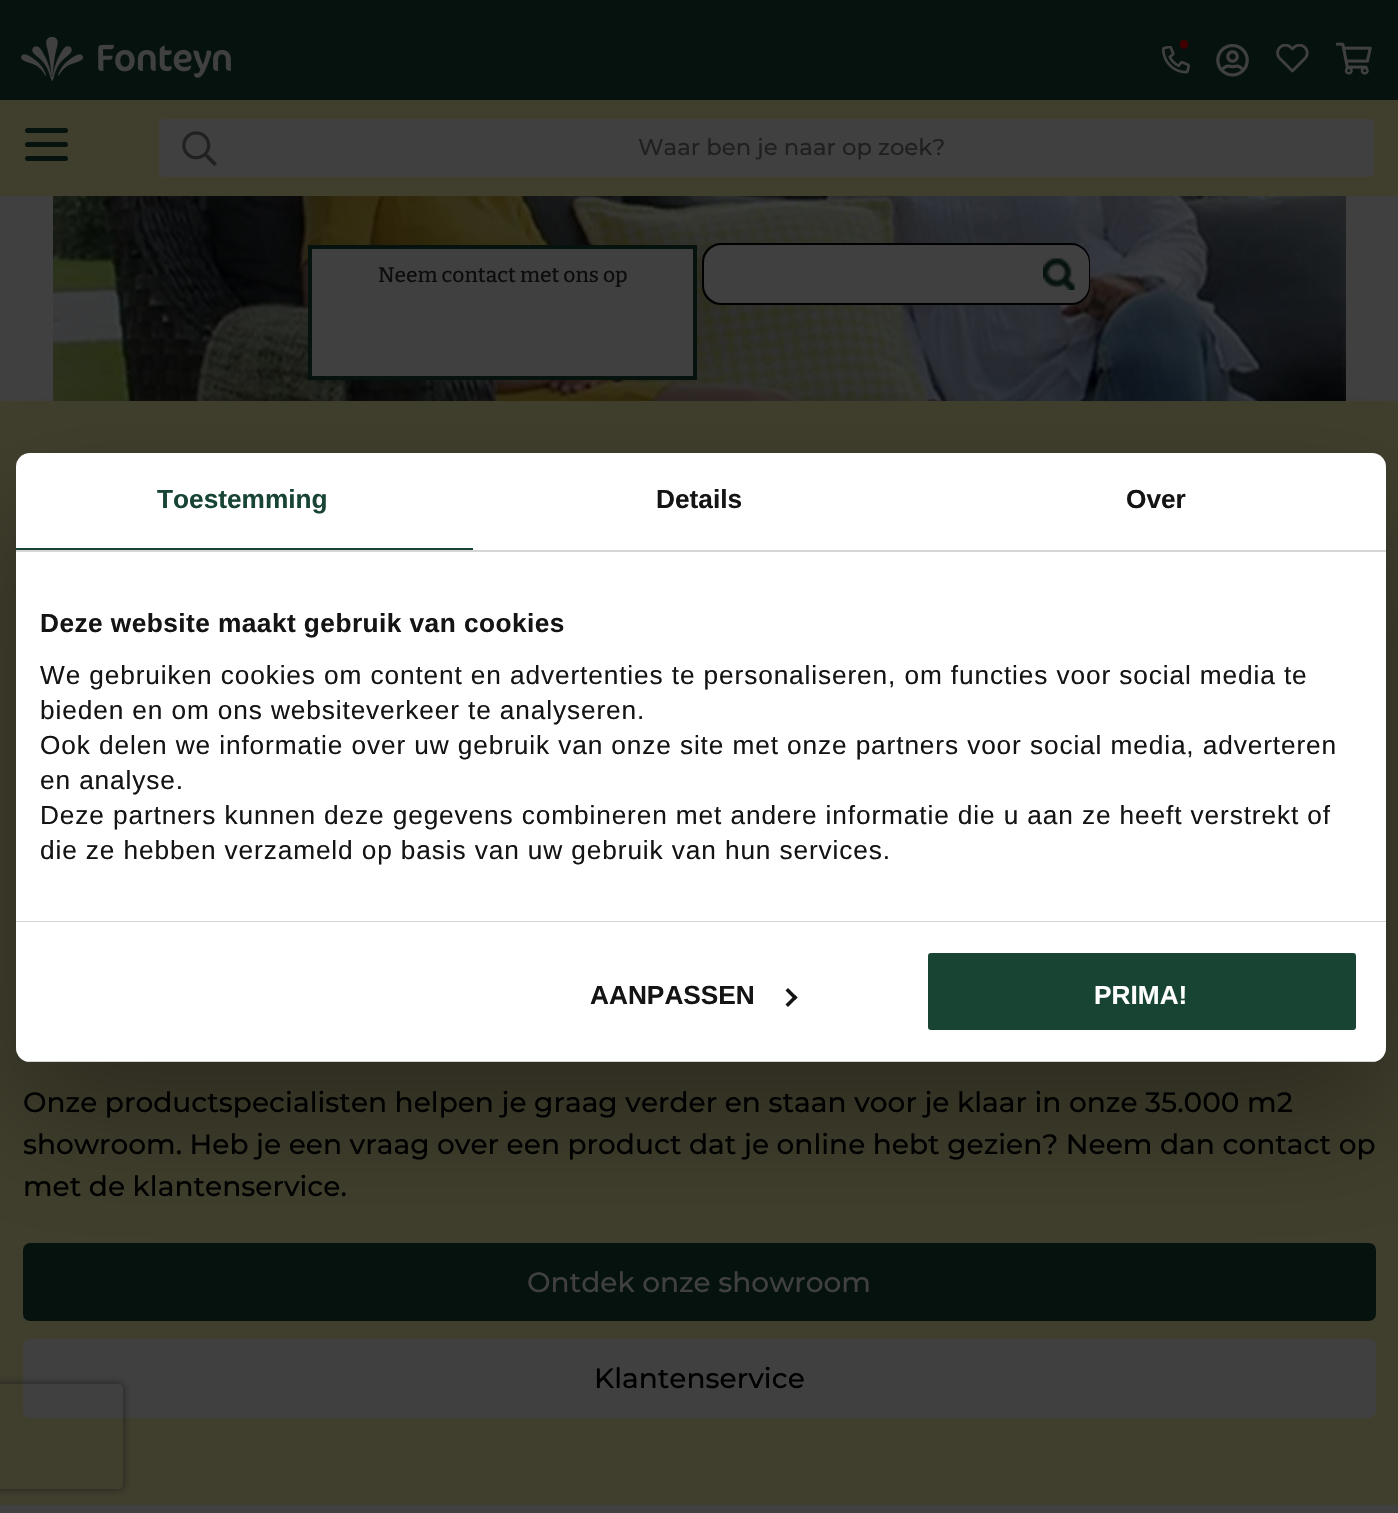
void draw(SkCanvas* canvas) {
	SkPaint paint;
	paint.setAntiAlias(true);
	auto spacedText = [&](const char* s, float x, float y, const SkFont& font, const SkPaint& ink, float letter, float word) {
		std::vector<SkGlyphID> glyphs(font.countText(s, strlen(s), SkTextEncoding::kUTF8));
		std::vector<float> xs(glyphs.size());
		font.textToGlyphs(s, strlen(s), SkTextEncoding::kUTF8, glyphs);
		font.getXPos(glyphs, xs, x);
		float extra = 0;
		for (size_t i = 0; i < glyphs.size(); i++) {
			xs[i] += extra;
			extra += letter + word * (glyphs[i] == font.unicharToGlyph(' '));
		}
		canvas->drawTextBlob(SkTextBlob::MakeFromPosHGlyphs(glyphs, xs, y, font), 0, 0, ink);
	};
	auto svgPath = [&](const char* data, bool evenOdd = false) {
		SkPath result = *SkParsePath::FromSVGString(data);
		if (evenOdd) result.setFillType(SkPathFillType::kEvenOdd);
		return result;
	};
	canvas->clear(0xff404040);
	paint.setColor(0xff05120d);
	canvas->drawRect(SkRect::MakeXYWH(0, 0, 1398, 100), paint);
	canvas->drawImageRect(SkImages::DeferredFromEncodedData(SkData::MakeFromFileName("img1.png")), SkRect::MakeXYWH(21, 37, 210, 44), SkSamplingOptions());
	canvas->drawImageRect(SkImages::DeferredFromEncodedData(SkData::MakeFromFileName("img2.png")), SkRect::MakeXYWH(1162, 46, 28, 28), SkSamplingOptions());
	paint.setColor(0xff400000);
	canvas->drawRoundRect(SkRect::MakeXYWH(1180, 40, 8, 9), 4, 4, paint);
	canvas->drawImageRect(SkImages::DeferredFromEncodedData(SkData::MakeFromFileName("img3.png")), SkRect::MakeXYWH(1216, 44, 33, 33), SkSamplingOptions());
	canvas->drawImageRect(SkImages::DeferredFromEncodedData(SkData::MakeFromFileName("img4.png")), SkRect::MakeXYWH(1276, 44, 33, 29), SkSamplingOptions());
	canvas->drawImageRect(SkImages::DeferredFromEncodedData(SkData::MakeFromFileName("img5.png")), SkRect::MakeXYWH(1335, 42, 37, 33), SkSamplingOptions());
	paint.setColor(0xff403e2c);
	canvas->drawRect(SkRect::MakeXYWH(0, 100, 1398, 96), paint);
	paint.setColor(0xff05120d);
	canvas->drawRoundRect(SkRect::MakeXYWH(25, 128, 43, 5), 2.5, 2.5, paint);
	canvas->drawRoundRect(SkRect::MakeXYWH(25, 142, 43, 5), 2.5, 2.5, paint);
	canvas->drawRoundRect(SkRect::MakeXYWH(25, 156, 43, 5), 2.5, 2.5, paint);
	paint.setColor(0xff404040);
	canvas->drawRoundRect(SkRect::MakeXYWH(159, 119, 1215, 58), 5, 5, paint);
	canvas->drawImageRect(SkImages::DeferredFromEncodedData(SkData::MakeFromFileName("img6.png")), SkRect::MakeXYWH(182, 131, 35, 35), SkSamplingOptions());
	SkFont f1(fontMgr->matchFamilyStyle("Montserrat", SkFontStyle(500, SkFontStyle::kNormal_Width, SkFontStyle::kUpright_Slant)), 22.75);
	f1.setSubpixel(true);
	paint.setColor(0xff202020);
	canvas->drawString("Waar ben je naar op zoek?", 638, 155, f1, paint);
	canvas->drawImageRect(SkImages::DeferredFromEncodedData(SkData::MakeFromFileName("img7.png")), SkRect::MakeXYWH(53, 196, 1293, 205), SkSamplingOptions());
	paint.setColor(0xff404040);
	canvas->drawRect(SkRect::MakeXYWH(310, 247, 385, 131), paint);
	paint.setStroke(true);
	paint.setStrokeWidth(4);
	paint.setColor(0xff05120d);
	canvas->drawRect(SkRect::MakeXYWH(310, 247, 385, 131), paint);
	SkFont f2(fontMgr->matchFamilyStyle("Bitter", SkFontStyle(500, SkFontStyle::kNormal_Width, SkFontStyle::kUpright_Slant)), 21);
	f2.setSubpixel(true);
	paint.setStroke(false);
	paint.setColor(0xff0d0d0d);
	canvas->drawString("Neem contact met ons op", 378, 282, f2, paint);
	paint.setColor(0xff05120d);
	canvas->drawRoundRect(SkRect::MakeXYWH(703, 244, 386, 60), 18, 18, paint);
	paint.setStroke(true);
	paint.setStrokeWidth(2);
	paint.setColor(0xff000000);
	canvas->drawRoundRect(SkRect::MakeXYWH(703, 244, 386, 60), 18, 18, paint);
	paint.setStroke(false);
	paint.setColor(0xff404040);
	canvas->drawRoundRect(SkRect::MakeXYWH(704, 245, 385, 58), 18, 18, paint);
	canvas->drawImageRect(SkImages::DeferredFromEncodedData(SkData::MakeFromFileName("img8.png")), SkRect::MakeXYWH(1043, 258, 32, 32), SkSamplingOptions());
	paint.setColor(0xff403e2c);
	canvas->drawRect(SkRect::MakeXYWH(0, 401, 1398, 1104), paint);
	SkFont f3(fontMgr->matchFamilyStyle("Montserrat", SkFontStyle(500, SkFontStyle::kNormal_Width, SkFontStyle::kUpright_Slant)), 28);
	f3.setSubpixel(true);
	paint.setColor(0xff000000);
	canvas->drawString("Onze productspecialisten helpen je graag verder en staan voor je klaar in onze 35.000 m2", 23, 1112, f3, paint);
	canvas->drawString("showroom. Heb je een vraag over een product dat je online hebt gezien? Neem dan contact op", 23, 1154, f3, paint);
	canvas->drawString("met de klantenservice.", 23, 1196, f3, paint);
	paint.setColor(0xff05120d);
	canvas->drawRoundRect(SkRect::MakeXYWH(23, 1243, 1353, 78), 7, 7, paint);
	paint.setColor(0xff404040);
	canvas->drawString("Ontdek onze showroom", 527, 1292, f3, paint);
	canvas->drawRoundRect(SkRect::MakeXYWH(23, 1339, 1353, 79), 7, 7, paint);
	paint.setColor(0xff000000);
	canvas->drawString("Klantenservice", 594, 1388, f3, paint);
	paint.setColor(0x4d000000);
	paint.setMaskFilter(SkMaskFilter::MakeBlur(kNormal_SkBlurStyle, 59.5));
	canvas->drawRoundRect(SkRect::MakeXYWH(16, 509, 1370, 609), 14, 14, paint);
	paint.setMaskFilter(nullptr);
	paint.setColor(0xffffffff);
	canvas->drawRoundRect(SkRect::MakeXYWH(16, 453, 1370, 609), 14, 14, paint);
	paint.setColor(0xffd6d6d6);
	canvas->drawRect(SkRect::MakeXYWH(16, 550, 1370, 2), paint);
	paint.setColor(0xff184434);
	canvas->drawRect(SkRect::MakeXYWH(16, 548, 457, 2), paint);
	SkFont f4(fontMgr->matchFamilyStyle("Liberation Sans", SkFontStyle::Bold()), 26.25);
	f4.setSubpixel(true);
	canvas->drawString("Toestemming", 157, 508, f4, paint);
	paint.setColor(0xff141414);
	canvas->drawString("Details", 656, 508, f4, paint);
	canvas->drawString("Over", 1126, 508, f4, paint);
	paint.setColor(0xffd6d6d6);
	canvas->drawRect(SkRect::MakeXYWH(16, 921, 1370, 1), paint);
	paint.setColor(0xff141414);
	spacedText("Deze website maakt gebruik van cookies", 40, 632, f4, paint, 0.45, 0);
	SkFont f5(fontMgr->matchFamilyStyle("Liberation Sans", SkFontStyle::Normal()), 26.25);
	f5.setSubpixel(true);
	spacedText("We gebruiken cookies om content en advertenties te personaliseren, om functies voor social media te", 40, 684, f5, paint, 0.88, 0);
	spacedText("bieden en om ons websiteverkeer te analyseren.", 40, 719, f5, paint, 0.88, 0);
	spacedText("Ook delen we informatie over uw gebruik van onze site met onze partners voor social media, adverteren", 40, 754, f5, paint, 0.88, 0);
	spacedText("en analyse.", 40, 789, f5, paint, 0.88, 0);
	spacedText("Deze partners kunnen deze gegevens combineren met andere informatie die u aan ze heeft verstrekt of", 40, 824, f5, paint, 0.88, 0);
	spacedText("die ze hebben verzameld op basis van uw gebruik van hun services.", 40, 859, f5, paint, 0.88, 0);
	canvas->save();
	canvas->clipPath(svgPath("M30 453H1372C1379.5 453 1386 459.5 1386 467V1048C1386 1055.5 1379.5 1062 1372 1062H30C22.5 1062 16 1055.5 16 1048V467C16 459.5 22.5 453 30 453Z"), true);
	paint.setColor(0xffd6d6d6);
	canvas->drawRect(SkRect::MakeXYWH(25, 1061, 1352, 1), paint);
	canvas->restore();
	paint.setColor(0xff141414);
	canvas->drawString("AANPASSEN", 590, 1004, f4, paint);
	canvas->drawPath(svgPath("M788 988L797.5 997.5L795 1000L785.5 990.5Z"), paint);
	canvas->drawPath(svgPath("M795 995L797.5 997.5L788 1007L785.5 1004.5Z"), paint);
	paint.setColor(0xff184434);
	canvas->drawRoundRect(SkRect::MakeXYWH(926, 951, 432, 81), 5, 5, paint);
	paint.setStroke(true);
	paint.setStrokeWidth(4);
	paint.setColor(0xffffffff);
	canvas->drawRoundRect(SkRect::MakeXYWH(926, 951, 432, 81), 5, 5, paint);
	paint.setStroke(false);
	canvas->drawString("PRIMA!", 1094, 1004, f4, paint);
	canvas->save();
	canvas->clipPath(svgPath("M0 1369H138V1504H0ZM-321 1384H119C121 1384 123 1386 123 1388V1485C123 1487 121 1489 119 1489H-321C-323 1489-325 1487-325 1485V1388C-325 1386-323 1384-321 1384Z", true), true);
	paint.setColor(0xff202020);
	paint.setMaskFilter(SkMaskFilter::MakeBlur(kNormal_SkBlurStyle, 4.5));
	canvas->drawRoundRect(SkRect::MakeXYWH(-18, 1384, 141, 105), 4, 4, paint);
	paint.setMaskFilter(nullptr);
	canvas->restore();
}
